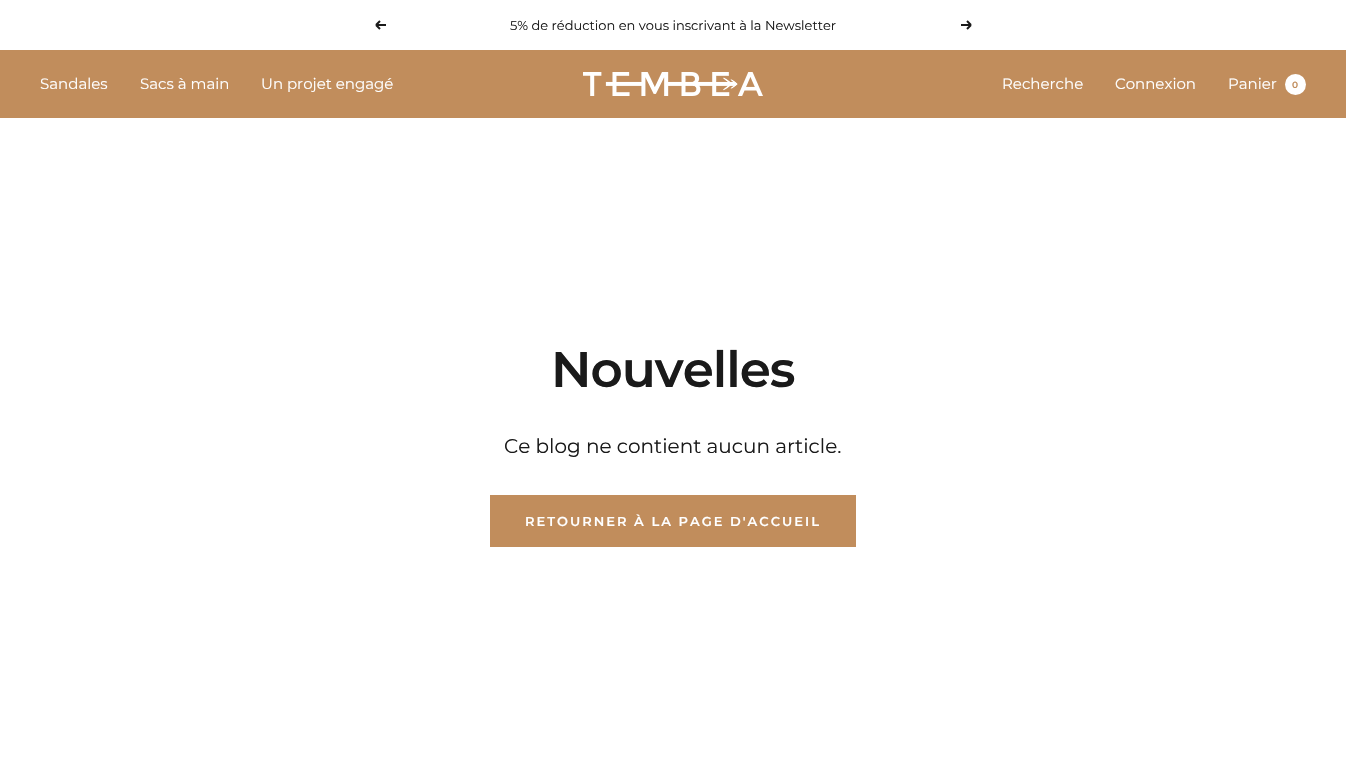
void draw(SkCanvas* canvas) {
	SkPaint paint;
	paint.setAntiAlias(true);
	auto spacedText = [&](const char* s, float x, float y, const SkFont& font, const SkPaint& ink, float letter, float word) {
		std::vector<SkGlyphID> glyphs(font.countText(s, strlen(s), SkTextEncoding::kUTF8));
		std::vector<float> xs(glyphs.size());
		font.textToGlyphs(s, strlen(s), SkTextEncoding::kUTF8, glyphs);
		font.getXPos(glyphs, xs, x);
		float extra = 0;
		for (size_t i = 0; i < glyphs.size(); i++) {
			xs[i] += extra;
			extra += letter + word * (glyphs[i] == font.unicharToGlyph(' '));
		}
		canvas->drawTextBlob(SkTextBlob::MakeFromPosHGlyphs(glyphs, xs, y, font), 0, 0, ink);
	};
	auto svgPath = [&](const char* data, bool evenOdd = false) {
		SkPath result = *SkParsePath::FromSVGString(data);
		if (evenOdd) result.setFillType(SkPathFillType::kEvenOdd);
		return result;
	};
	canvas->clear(0xffffffff);
	paint.setStroke(true);
	paint.setStrokeWidth(2);
	paint.setColor(0xff1a1a1a);
	canvas->drawPath(svgPath("M386 25H376M376 25L380 29M376 25L380 21"), paint);
	SkFont f1(fontMgr->matchFamilyStyle("Montserrat", SkFontStyle::Normal()), 13);
	f1.setSubpixel(true);
	paint.setStroke(false);
	canvas->drawString("5% de réduction en vous inscrivant à la Newsletter", 510, 30, f1, paint);
	paint.setStroke(true);
	canvas->drawPath(svgPath("M961 25H971M971 25L967 29M971 25L967 21"), paint);
	paint.setStroke(false);
	paint.setColor(0xffc18d5c);
	canvas->drawRect(SkRect::MakeXYWH(0, 50, 1346, 68), paint);
	SkFont f2(fontMgr->matchFamilyStyle("Montserrat", SkFontStyle::Normal()), 15);
	f2.setSubpixel(true);
	paint.setColor(0xffffffff);
	canvas->drawString("Sandales", 40, 89, f2, paint);
	canvas->drawString("Sacs à main", 140, 89, f2, paint);
	canvas->drawString("Un projet engagé", 261, 89, f2, paint);
	canvas->drawImageRect(SkImages::DeferredFromEncodedData(SkData::MakeFromFileName("img1.png")), SkRect::MakeXYWH(583, 72, 180, 24), SkSamplingOptions());
	canvas->drawString("Recherche", 1002, 89, f2, paint);
	canvas->drawString("Connexion", 1115, 89, f2, paint);
	canvas->drawString("Panier", 1228, 89, f2, paint);
	canvas->drawCircle(1295.5, 84.5, 10.5, paint);
	SkFont f3(fontMgr->matchFamilyStyle("Montserrat", SkFontStyle(600, SkFontStyle::kNormal_Width, SkFontStyle::kUpright_Slant)), 9);
	f3.setSubpixel(true);
	paint.setColor(0xffc18d5c);
	canvas->drawString("0", 1292, 88, f3, paint);
	SkFont f4(fontMgr->matchFamilyStyle("Montserrat", SkFontStyle(600, SkFontStyle::kNormal_Width, SkFontStyle::kUpright_Slant)), 50);
	f4.setSubpixel(true);
	paint.setColor(0xff1a1a1a);
	spacedText("Nouvelles", 551, 387, f4, paint, -1, 0);
	SkFont f5(fontMgr->matchFamilyStyle("Montserrat", SkFontStyle::Normal()), 20);
	f5.setSubpixel(true);
	canvas->drawString("Ce blog ne contient aucun article.", 504, 453, f5, paint);
	paint.setColor(0xffc18d5c);
	canvas->drawRect(SkRect::MakeXYWH(490, 495, 366, 52), paint);
	SkFont f6(fontMgr->matchFamilyStyle("Montserrat", SkFontStyle(600, SkFontStyle::kNormal_Width, SkFontStyle::kUpright_Slant)), 13);
	f6.setSubpixel(true);
	paint.setColor(0xffffffff);
	spacedText("RETOURNER À LA PAGE D'ACCUEIL", 525, 526, f6, paint, 2, 0);
}
